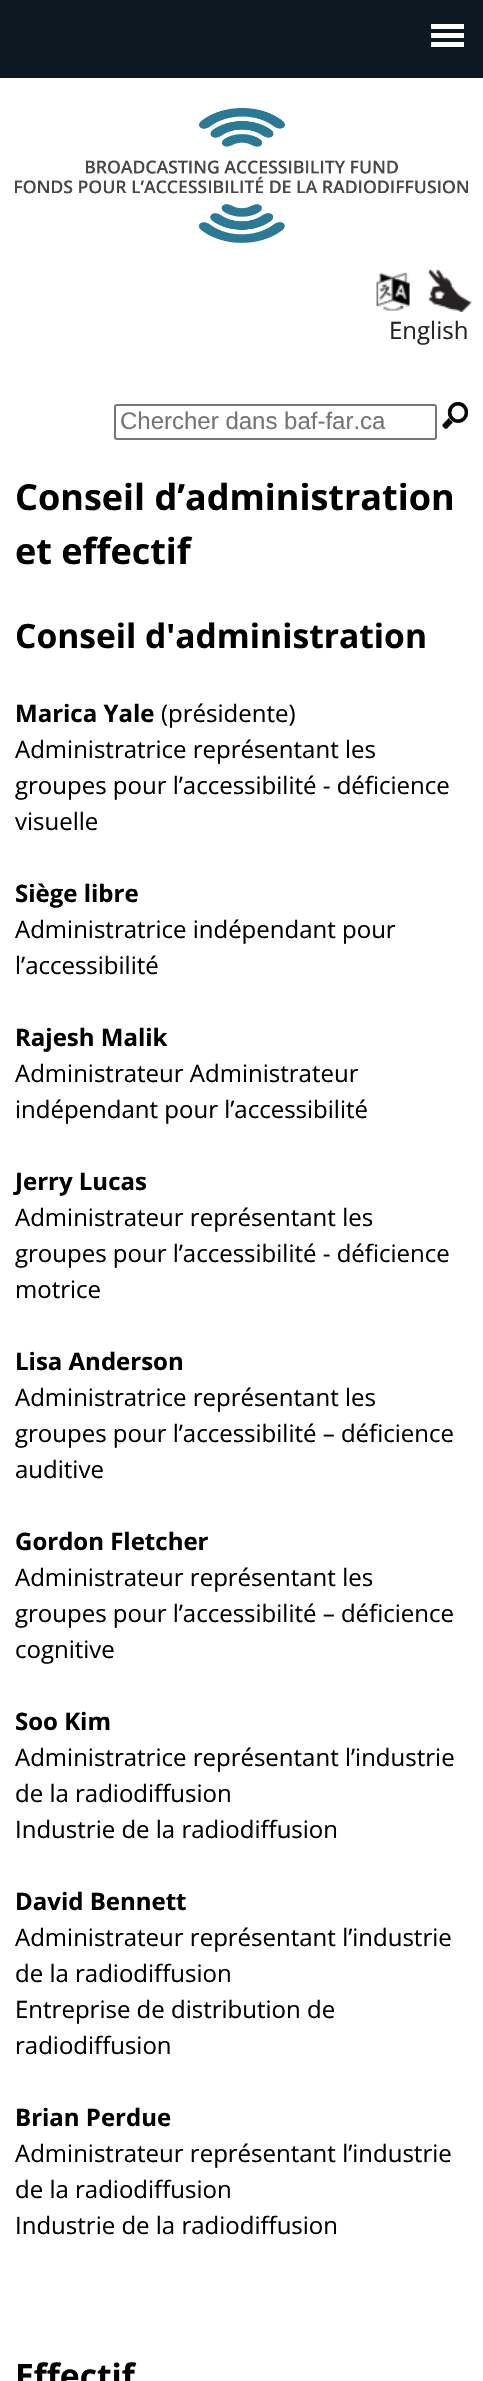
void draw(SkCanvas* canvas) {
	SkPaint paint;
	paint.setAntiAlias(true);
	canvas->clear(0xffffffff);
	paint.setColor(0xff0c1923);
	canvas->drawRect(SkRect::MakeXYWH(0, 0, 483, 78), paint);
	paint.setColor(0xffffffff);
	canvas->drawRect(SkRect::MakeXYWH(431, 24, 33, 5), paint);
	canvas->drawRect(SkRect::MakeXYWH(431, 33, 33, 5), paint);
	canvas->drawRect(SkRect::MakeXYWH(431, 42, 33, 5), paint);
	canvas->drawImageRect(SkImages::DeferredFromEncodedData(SkData::MakeFromFileName("img1.png")), SkRect::MakeXYWH(15, 108, 453, 135), SkSamplingOptions());
	canvas->drawImageRect(SkImages::DeferredFromEncodedData(SkData::MakeFromFileName("img2.png")), SkRect::MakeXYWH(376, 269, 96, 43), SkSamplingOptions());
	SkFont f1(fontMgr->matchFamilyStyle("Open Sans", SkFontStyle::Normal()), 24);
	f1.setSubpixel(true);
	paint.setColor(0xff242424);
	canvas->drawString("English", 389, 339, f1, paint);
	paint.setStroke(true);
	paint.setStrokeWidth(2);
	paint.setColor(0xff767676);
	canvas->drawRoundRect(SkRect::MakeXYWH(115, 405, 321, 34), 2, 2, paint);
	SkFont f2(fontMgr->matchFamilyStyle("Liberation Sans", SkFontStyle::Normal()), 24);
	f2.setSubpixel(true);
	paint.setStroke(false);
	paint.setColor(0xff757575);
	canvas->drawString("Chercher dans baf-far.ca", 120, 429, f2, paint);
	canvas->drawImageRect(SkImages::DeferredFromEncodedData(SkData::MakeFromFileName("img3.png")), SkRect::MakeXYWH(442, 402, 26, 27), SkSamplingOptions());
	SkFont f3(fontMgr->matchFamilyStyle("Open Sans", SkFontStyle::Bold()), 36);
	f3.setSubpixel(true);
	paint.setColor(0xff000000);
	canvas->drawString("Conseil d’administration", 15, 510, f3, paint);
	canvas->drawString("et effectif", 15, 564, f3, paint);
	SkFont f4(fontMgr->matchFamilyStyle("Open Sans", SkFontStyle::Bold()), 33.6);
	f4.setSubpixel(true);
	canvas->drawString("Conseil d'administration", 15, 648, f4, paint);
	SkFont f5(fontMgr->matchFamilyStyle("Open Sans", SkFontStyle::Bold()), 24);
	f5.setSubpixel(true);
	canvas->drawString("Marica Yale", 15, 722, f5, paint);
	canvas->drawString("(présidente)", 161, 722, f1, paint);
	canvas->drawString("Administratrice représentant les", 15, 758, f1, paint);
	canvas->drawString("groupes pour l’accessibilité - déficience", 15, 794, f1, paint);
	canvas->drawString("visuelle", 15, 830, f1, paint);
	canvas->drawString("Siège libre", 15, 902, f5, paint);
	canvas->drawString("Administratrice indépendant pour", 15, 938, f1, paint);
	canvas->drawString("l’accessibilité", 15, 974, f1, paint);
	canvas->drawString("Rajesh Malik", 15, 1046, f5, paint);
	canvas->drawString("Administrateur Administrateur", 15, 1082, f1, paint);
	canvas->drawString("indépendant pour l’accessibilité", 15, 1118, f1, paint);
	canvas->drawString("Jerry Lucas", 15, 1190, f5, paint);
	canvas->drawString("Administrateur représentant les", 15, 1226, f1, paint);
	canvas->drawString("groupes pour l’accessibilité - déficience", 15, 1262, f1, paint);
	canvas->drawString("motrice", 15, 1298, f1, paint);
	canvas->drawString("Lisa Anderson", 15, 1370, f5, paint);
	canvas->drawString("Administratrice représentant les", 15, 1406, f1, paint);
	canvas->drawString("groupes pour l’accessibilité – déficience", 15, 1442, f1, paint);
	canvas->drawString("auditive", 15, 1478, f1, paint);
	canvas->drawString("Gordon Fletcher", 15, 1550, f5, paint);
	canvas->drawString("Administrateur représentant les", 15, 1586, f1, paint);
	canvas->drawString("groupes pour l’accessibilité – déficience", 15, 1622, f1, paint);
	canvas->drawString("cognitive", 15, 1658, f1, paint);
	canvas->drawString("Soo Kim", 15, 1730, f5, paint);
	canvas->drawString("Administratrice représentant l’industrie", 15, 1766, f1, paint);
	canvas->drawString("de la radiodiffusion", 15, 1802, f1, paint);
	canvas->drawString("Industrie de la radiodiffusion", 15, 1838, f1, paint);
	canvas->drawString("David Bennett", 15, 1910, f5, paint);
	canvas->drawString("Administrateur représentant l’industrie", 15, 1946, f1, paint);
	canvas->drawString("de la radiodiffusion", 15, 1982, f1, paint);
	canvas->drawString("Entreprise de distribution de", 15, 2018, f1, paint);
	canvas->drawString("radiodiffusion", 15, 2054, f1, paint);
	canvas->drawString("Brian Perdue", 15, 2126, f5, paint);
	canvas->drawString("Administrateur représentant l’industrie", 15, 2162, f1, paint);
	canvas->drawString("de la radiodiffusion", 15, 2198, f1, paint);
	canvas->drawString("Industrie de la radiodiffusion", 15, 2234, f1, paint);
	canvas->drawString("Effectif", 15, 2388, f4, paint);
}
